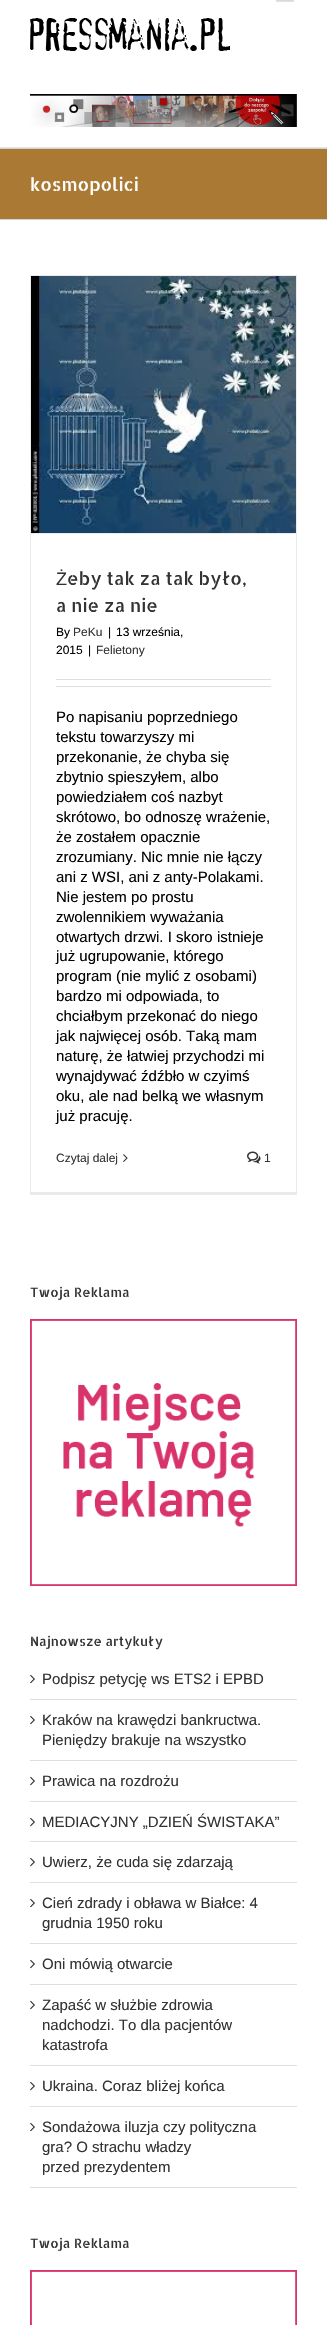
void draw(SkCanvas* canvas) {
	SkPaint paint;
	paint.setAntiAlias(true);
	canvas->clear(0xffaa7933);
	paint.setColor(0xffffffff);
	canvas->drawRect(SkRect::MakeXYWH(0, 0, 327, 147), paint);
	paint.setColor(0xffe5e5e5);
	canvas->drawRect(SkRect::MakeXYWH(0, 147, 327, 1), paint);
	canvas->drawImageRect(SkImages::DeferredFromEncodedData(SkData::MakeFromFileName("img1.png")), SkRect::MakeXYWH(276, 0, 18, 2), SkSamplingOptions());
	canvas->drawImageRect(SkImages::DeferredFromEncodedData(SkData::MakeFromFileName("img2.png")), SkRect::MakeXYWH(30, 18, 200, 33), SkSamplingOptions());
	canvas->drawImageRect(SkImages::DeferredFromEncodedData(SkData::MakeFromFileName("img3.png")), SkRect::MakeXYWH(30, 94, 267, 33), SkSamplingOptions());
	paint.setColor(0xffd2d3d4);
	canvas->drawRect(SkRect::MakeXYWH(0, 148, 327, 1), paint);
	canvas->drawRect(SkRect::MakeXYWH(0, 219, 327, 1), paint);
	SkFont f1(fontMgr->matchFamilyStyle("Allerta Stencil", SkFontStyle::Normal()), 18);
	f1.setSubpixel(true);
	paint.setColor(0xffffffff);
	canvas->drawString("kosmopolici", 30, 191, f1, paint);
	canvas->drawRect(SkRect::MakeXYWH(0, 220, 327, 2105), paint);
	paint.setColor(0xffebeaea);
	canvas->drawRect(SkRect::MakeXYWH(30, 275, 267, 1), paint);
	canvas->drawRect(SkRect::MakeXYWH(296, 275, 1, 920), paint);
	canvas->drawRect(SkRect::MakeXYWH(30, 1192, 267, 3), paint);
	canvas->drawRect(SkRect::MakeXYWH(30, 275, 1, 920), paint);
	canvas->drawRect(SkRect::MakeXYWH(31, 533, 265, 1), paint);
	canvas->drawImageRect(SkImages::DeferredFromEncodedData(SkData::MakeFromFileName("img4.png")), SkRect::MakeXYWH(31, 276, 265, 257), SkSamplingOptions());
	SkFont f2(fontMgr->matchFamilyStyle("Liberation Sans", SkFontStyle::Normal()), 18);
	f2.setSubpixel(true);
	paint.setColor(0xff333333);
	canvas->drawString("Ż", 56, 585, f2, paint);
	canvas->drawString("eby tak za tak było,", 67, 585, f1, paint);
	canvas->drawString("a nie za nie", 56, 612, f1, paint);
	SkFont f3(fontMgr->matchFamilyStyle("Liberation Sans", SkFontStyle::Normal()), 12);
	f3.setSubpixel(true);
	paint.setColor(0xff020202);
	canvas->drawString("By", 56, 636, f3, paint);
	paint.setColor(0xff333333);
	canvas->drawString("PeKu", 73, 636, f3, paint);
	paint.setColor(0xff020202);
	canvas->drawString("|", 108, 636, f3, paint);
	canvas->drawString("13 września,", 116, 636, f3, paint);
	canvas->drawString("2015", 56, 654, f3, paint);
	canvas->drawString("|", 88, 654, f3, paint);
	paint.setColor(0xff333333);
	canvas->drawString("Felietony", 96, 654, f3, paint);
	paint.setColor(0xffe0dede);
	canvas->drawRect(SkRect::MakeXYWH(56, 679, 215, 1), paint);
	canvas->drawRect(SkRect::MakeXYWH(56, 686, 215, 1), paint);
	SkFont f4(fontMgr->matchFamilyStyle("Liberation Sans", SkFontStyle::Normal()), 15);
	f4.setSubpixel(true);
	paint.setColor(0xff020202);
	canvas->drawString("Po napisaniu poprzedniego", 56, 722, f4, paint);
	canvas->drawString("tekstu towarzyszy mi", 56, 742, f4, paint);
	canvas->drawString("przekonanie, że chyba się", 56, 762, f4, paint);
	canvas->drawString("zbytnio spieszyłem, albo", 56, 782, f4, paint);
	canvas->drawString("powiedziałem coś nazbyt", 56, 802, f4, paint);
	canvas->drawString("skrótowo, bo odnoszę wrażenie,", 56, 822, f4, paint);
	canvas->drawString("że zostałem opacznie", 56, 842, f4, paint);
	canvas->drawString("zrozumiany. Nic mnie nie łączy", 56, 862, f4, paint);
	canvas->drawString("ani z WSI, ani z anty-Polakami.", 56, 882, f4, paint);
	canvas->drawString("Nie jestem po prostu", 56, 902, f4, paint);
	canvas->drawString("zwolennikiem wyważania", 56, 922, f4, paint);
	canvas->drawString("otwartych drzwi. I skoro istnieje", 56, 942, f4, paint);
	canvas->drawString("już ugrupowanie, którego", 56, 961, f4, paint);
	canvas->drawString("program (nie mylić z osobami)", 56, 981, f4, paint);
	canvas->drawString("bardzo mi odpowiada, to", 56, 1001, f4, paint);
	canvas->drawString("chciałbym przekonać do niego", 56, 1021, f4, paint);
	canvas->drawString("jak najwięcej osób. Taką mam", 56, 1041, f4, paint);
	canvas->drawString("naturę, że łatwiej przychodzi mi", 56, 1061, f4, paint);
	canvas->drawString("wynajdywać źdźbło w czyimś", 56, 1081, f4, paint);
	canvas->drawString("oku, ale nad belką we własnym", 56, 1101, f4, paint);
	canvas->drawString("już pracuję.", 56, 1121, f4, paint);
	paint.setColor(0xff333333);
	canvas->drawString("Czytaj dalej", 56, 1162, f3, paint);
	canvas->drawImageRect(SkImages::DeferredFromEncodedData(SkData::MakeFromFileName("img5.png")), SkRect::MakeXYWH(123, 1154, 5, 8), SkSamplingOptions());
	canvas->drawImageRect(SkImages::DeferredFromEncodedData(SkData::MakeFromFileName("img6.png")), SkRect::MakeXYWH(247, 1151, 14, 13), SkSamplingOptions());
	canvas->drawString("1", 264, 1162, f3, paint);
	SkFont f5(fontMgr->matchFamilyStyle("Allerta Stencil", SkFontStyle::Normal()), 13);
	f5.setSubpixel(true);
	canvas->drawString("Twoja Reklama", 30, 1297, f5, paint);
	canvas->drawImageRect(SkImages::DeferredFromEncodedData(SkData::MakeFromFileName("img7.png")), SkRect::MakeXYWH(30, 1319, 267, 267), SkSamplingOptions());
	canvas->drawString("Najnowsze artykuły", 30, 1646, f5, paint);
	paint.setColor(0xffe0dede);
	canvas->drawRect(SkRect::MakeXYWH(30, 1699, 267, 1), paint);
	canvas->drawImageRect(SkImages::DeferredFromEncodedData(SkData::MakeFromFileName("img8.png")), SkRect::MakeXYWH(30, 1674, 5, 10), SkSamplingOptions());
	paint.setColor(0xff333333);
	canvas->drawString("Podpisz petycję ws ETS2 i EPBD", 42, 1684, f4, paint);
	paint.setColor(0xffe0dede);
	canvas->drawRect(SkRect::MakeXYWH(30, 1760, 267, 1), paint);
	canvas->drawImageRect(SkImages::DeferredFromEncodedData(SkData::MakeFromFileName("img8.png")), SkRect::MakeXYWH(30, 1715, 5, 10), SkSamplingOptions());
	paint.setColor(0xff333333);
	canvas->drawString("Kraków na krawędzi bankructwa.", 42, 1725, f4, paint);
	canvas->drawString("Pieniędzy brakuje na wszystko", 42, 1745, f4, paint);
	paint.setColor(0xffe0dede);
	canvas->drawRect(SkRect::MakeXYWH(30, 1801, 267, 1), paint);
	canvas->drawImageRect(SkImages::DeferredFromEncodedData(SkData::MakeFromFileName("img8.png")), SkRect::MakeXYWH(30, 1776, 5, 10), SkSamplingOptions());
	paint.setColor(0xff333333);
	canvas->drawString("Prawica na rozdrożu", 42, 1786, f4, paint);
	paint.setColor(0xffe0dede);
	canvas->drawRect(SkRect::MakeXYWH(30, 1841, 267, 1), paint);
	canvas->drawImageRect(SkImages::DeferredFromEncodedData(SkData::MakeFromFileName("img8.png")), SkRect::MakeXYWH(30, 1817, 5, 10), SkSamplingOptions());
	paint.setColor(0xff333333);
	canvas->drawString("MEDIACYJNY „DZIEŃ ŚWISTAKA”", 42, 1827, f4, paint);
	paint.setColor(0xffe0dede);
	canvas->drawRect(SkRect::MakeXYWH(30, 1882, 267, 1), paint);
	canvas->drawImageRect(SkImages::DeferredFromEncodedData(SkData::MakeFromFileName("img8.png")), SkRect::MakeXYWH(30, 1857, 5, 10), SkSamplingOptions());
	paint.setColor(0xff333333);
	canvas->drawString("Uwierz, że cuda się zdarzają", 42, 1867, f4, paint);
	paint.setColor(0xffe0dede);
	canvas->drawRect(SkRect::MakeXYWH(30, 1943, 267, 1), paint);
	canvas->drawImageRect(SkImages::DeferredFromEncodedData(SkData::MakeFromFileName("img8.png")), SkRect::MakeXYWH(30, 1898, 5, 10), SkSamplingOptions());
	paint.setColor(0xff333333);
	canvas->drawString("Cień zdrady i obława w Białce: 4", 42, 1908, f4, paint);
	canvas->drawString("grudnia 1950 roku", 42, 1928, f4, paint);
	paint.setColor(0xffe0dede);
	canvas->drawRect(SkRect::MakeXYWH(30, 1984, 267, 1), paint);
	canvas->drawImageRect(SkImages::DeferredFromEncodedData(SkData::MakeFromFileName("img8.png")), SkRect::MakeXYWH(30, 1959, 5, 10), SkSamplingOptions());
	paint.setColor(0xff333333);
	canvas->drawString("Oni mówią otwarcie", 42, 1969, f4, paint);
	paint.setColor(0xffe0dede);
	canvas->drawRect(SkRect::MakeXYWH(30, 2065, 267, 1), paint);
	canvas->drawImageRect(SkImages::DeferredFromEncodedData(SkData::MakeFromFileName("img8.png")), SkRect::MakeXYWH(30, 2000, 5, 10), SkSamplingOptions());
	paint.setColor(0xff333333);
	canvas->drawString("Zapaść w służbie zdrowia", 42, 2010, f4, paint);
	canvas->drawString("nadchodzi. To dla pacjentów", 42, 2030, f4, paint);
	canvas->drawString("katastrofa", 42, 2050, f4, paint);
	paint.setColor(0xffe0dede);
	canvas->drawRect(SkRect::MakeXYWH(30, 2106, 267, 1), paint);
	canvas->drawImageRect(SkImages::DeferredFromEncodedData(SkData::MakeFromFileName("img8.png")), SkRect::MakeXYWH(30, 2081, 5, 10), SkSamplingOptions());
	paint.setColor(0xff333333);
	canvas->drawString("Ukraina. Coraz bliżej końca", 42, 2091, f4, paint);
	paint.setColor(0xffe0dede);
	canvas->drawRect(SkRect::MakeXYWH(30, 2187, 267, 1), paint);
	canvas->drawImageRect(SkImages::DeferredFromEncodedData(SkData::MakeFromFileName("img8.png")), SkRect::MakeXYWH(30, 2122, 5, 10), SkSamplingOptions());
	paint.setColor(0xff333333);
	canvas->drawString("Sondażowa iluzja czy polityczna", 42, 2132, f4, paint);
	canvas->drawString("gra? O strachu władzy", 42, 2152, f4, paint);
	canvas->drawString("przed prezydentem", 42, 2172, f4, paint);
	canvas->drawString("Twoja Reklama", 30, 2248, f5, paint);
	canvas->drawImageRect(SkImages::DeferredFromEncodedData(SkData::MakeFromFileName("img9.png")), SkRect::MakeXYWH(30, 2270, 267, 55), SkSamplingOptions());
}
